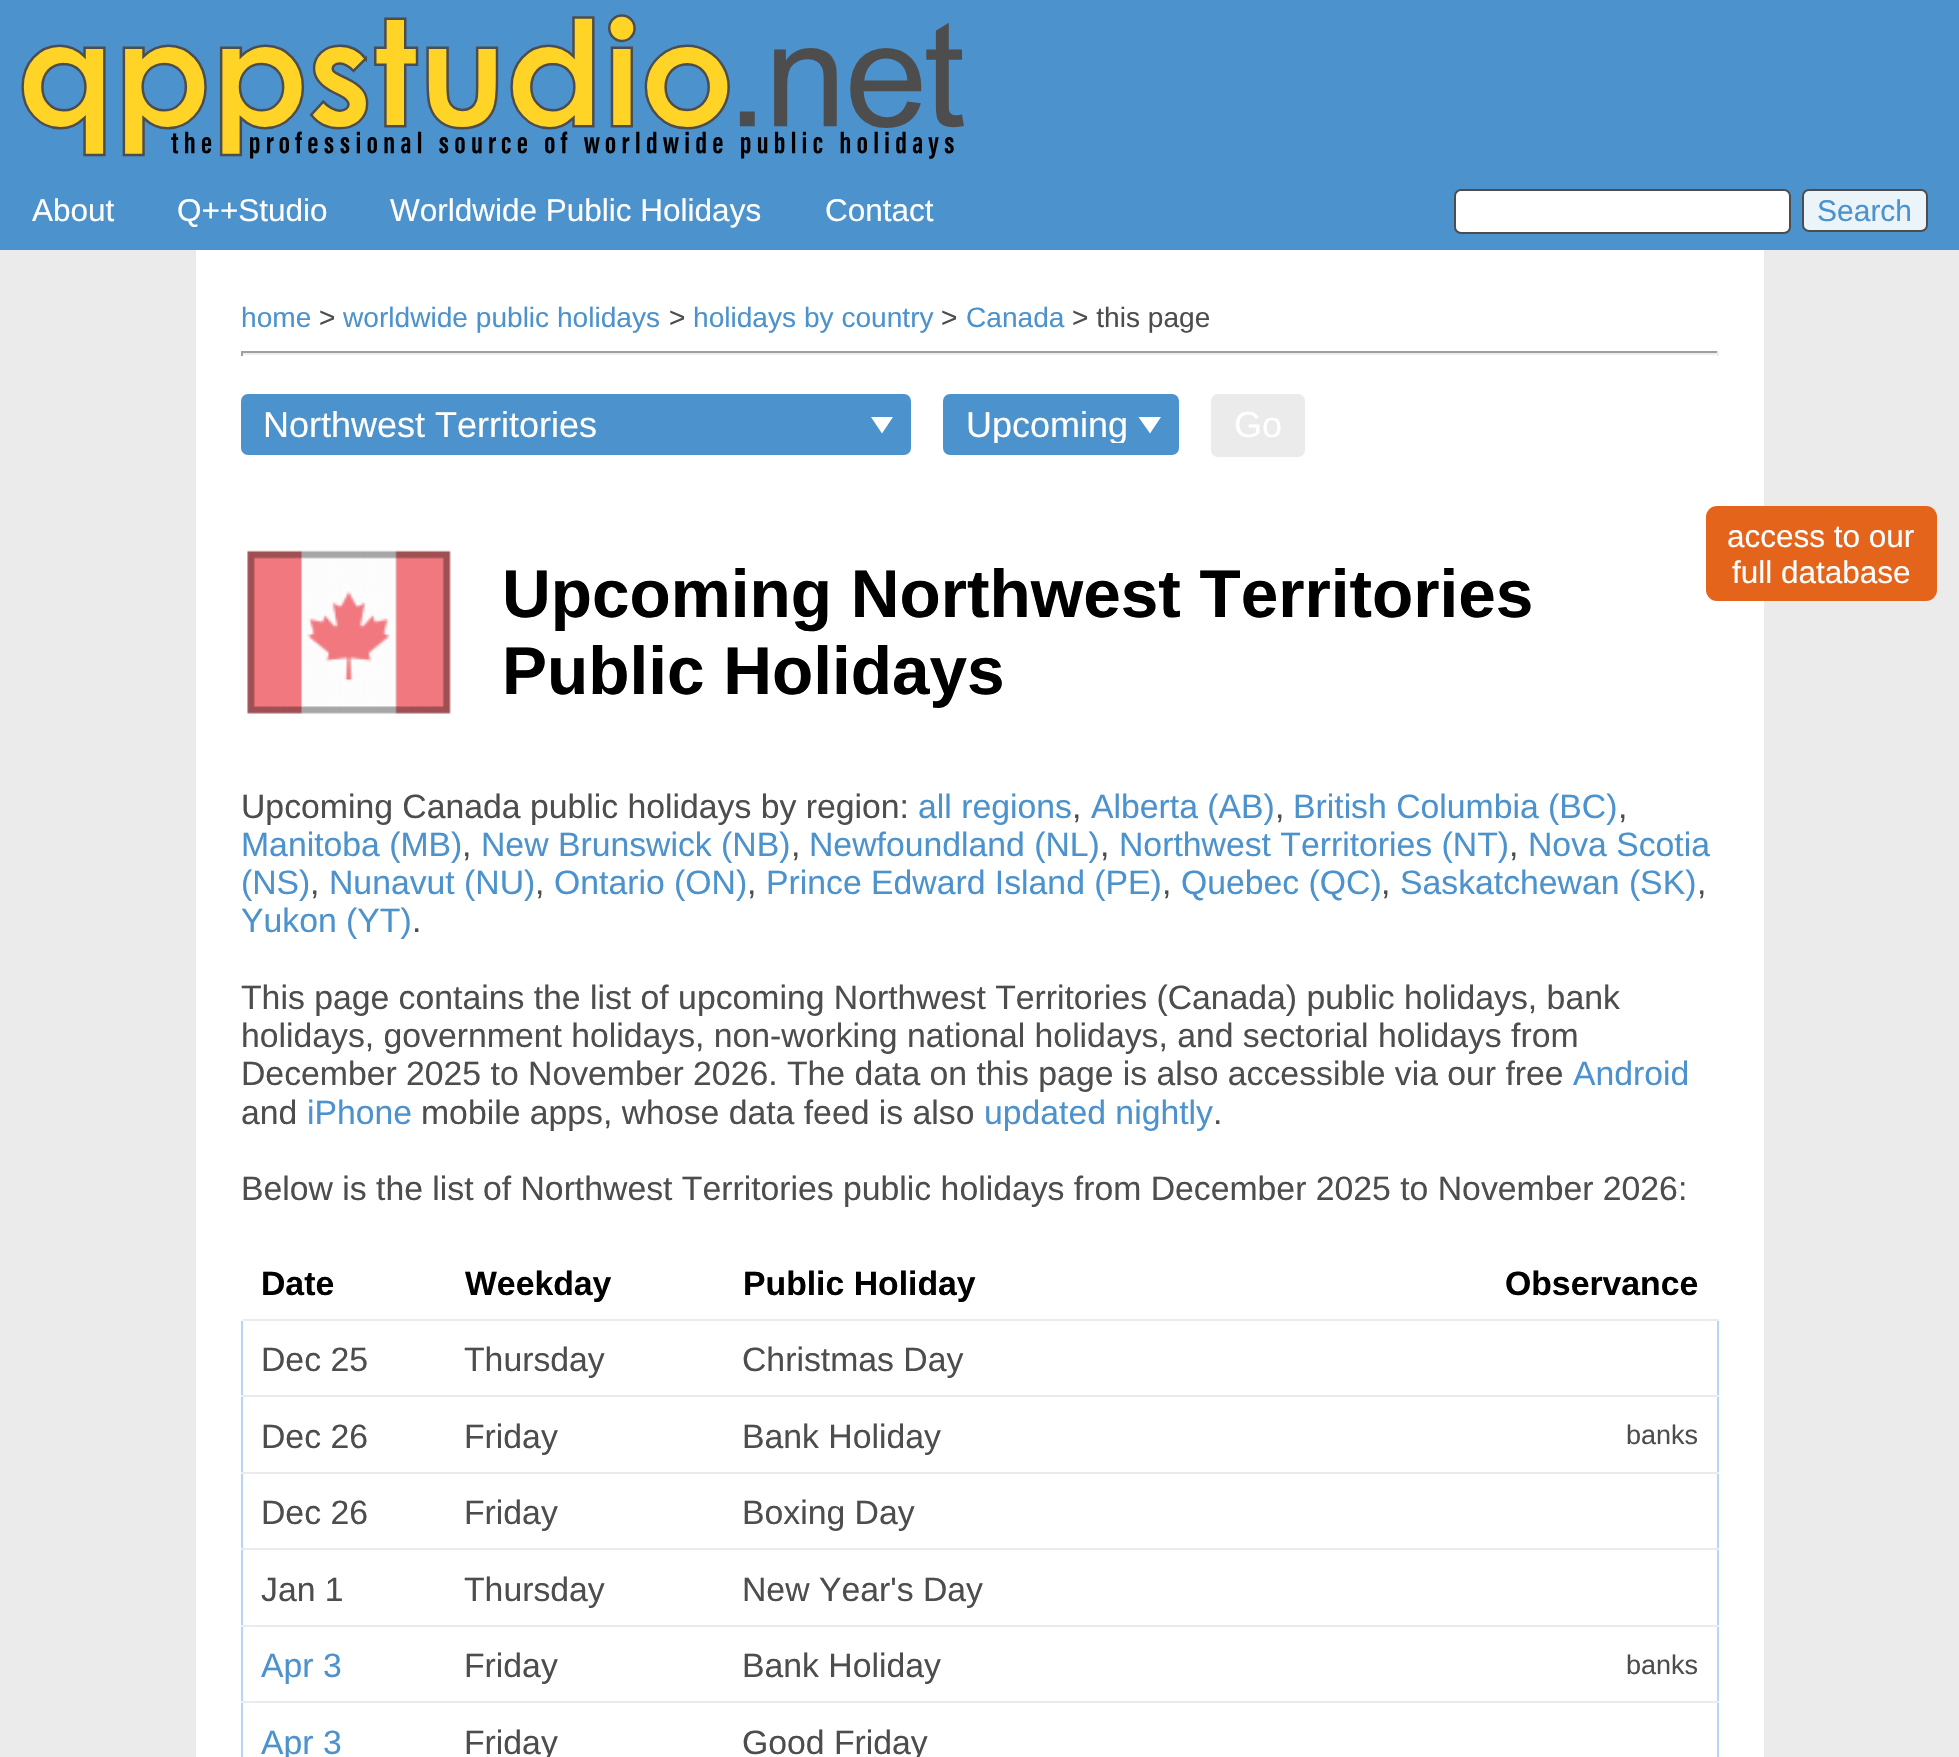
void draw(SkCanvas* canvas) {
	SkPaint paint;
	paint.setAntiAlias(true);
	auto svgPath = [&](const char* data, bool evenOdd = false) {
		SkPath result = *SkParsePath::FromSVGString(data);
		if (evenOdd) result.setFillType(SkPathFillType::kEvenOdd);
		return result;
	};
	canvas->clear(0xffebebeb);
	paint.setColor(0xff4c92cd);
	canvas->drawRect(SkRect::MakeXYWH(0, 0, 1959, 250), paint);
	canvas->drawImageRect(SkImages::DeferredFromEncodedData(SkData::MakeFromFileName("img1.png")), SkRect::MakeXYWH(21, 14, 943, 145), SkSamplingOptions());
	SkFont f1(fontMgr->matchFamilyStyle("Liberation Sans", SkFontStyle::Normal()), 31.5);
	f1.setSubpixel(true);
	paint.setColor(0xffffffff);
	canvas->drawString("About", 32, 221, f1, paint);
	canvas->drawString("Q++Studio", 177, 221, f1, paint);
	canvas->drawString("Worldwide Public Holidays", 390, 221, f1, paint);
	canvas->drawString("Contact", 825, 221, f1, paint);
	canvas->drawRoundRect(SkRect::MakeXYWH(1455, 190, 335, 43), 6, 6, paint);
	paint.setStroke(true);
	paint.setStrokeWidth(2);
	paint.setColor(0xff4d4d4d);
	canvas->drawRoundRect(SkRect::MakeXYWH(1455, 190, 335, 43), 6, 6, paint);
	paint.setStroke(false);
	paint.setColor(0xffeaf4f9);
	canvas->drawRoundRect(SkRect::MakeXYWH(1803, 190, 124, 41), 6, 6, paint);
	paint.setStroke(true);
	paint.setColor(0xff4d4d4d);
	canvas->drawRoundRect(SkRect::MakeXYWH(1803, 190, 124, 41), 6, 6, paint);
	SkFont f2(fontMgr->matchFamilyStyle("Liberation Sans", SkFontStyle::Normal()), 30);
	f2.setSubpixel(true);
	paint.setStroke(false);
	paint.setColor(0xff4c92cd);
	canvas->drawString("Search", 1817, 221, f2, paint);
	paint.setColor(0xffffffff);
	canvas->drawRect(SkRect::MakeXYWH(196, 250, 1568, 1507), paint);
	SkFont f3(fontMgr->matchFamilyStyle("Liberation Sans", SkFontStyle::Normal()), 28.1);
	f3.setSubpixel(true);
	paint.setColor(0xff4c92cd);
	canvas->drawString("home", 241, 327, f3, paint);
	paint.setColor(0xff4d4d4d);
	canvas->drawString(">", 319, 327, f3, paint);
	paint.setColor(0xff4c92cd);
	canvas->drawString("worldwide public holidays", 343, 327, f3, paint);
	paint.setColor(0xff4d4d4d);
	canvas->drawString(">", 669, 327, f3, paint);
	paint.setColor(0xff4c92cd);
	canvas->drawString("holidays by country", 693, 327, f3, paint);
	paint.setColor(0xff4d4d4d);
	canvas->drawString(">", 941, 327, f3, paint);
	paint.setColor(0xff4c92cd);
	canvas->drawString("Canada", 966, 327, f3, paint);
	paint.setColor(0xff4d4d4d);
	canvas->drawString("> this page", 1072, 327, f3, paint);
	paint.setColor(0xff9f9f9f);
	canvas->drawRect(SkRect::MakeXYWH(241, 351, 1478, 2), paint);
	paint.setColor(0xffeeeeee);
	canvas->drawRect(SkRect::MakeXYWH(1717, 351, 2, 5), paint);
	canvas->drawRect(SkRect::MakeXYWH(241, 353, 1478, 2), paint);
	paint.setColor(0xff9f9f9f);
	canvas->drawRect(SkRect::MakeXYWH(241, 351, 2, 5), paint);
	paint.setColor(0xff4c92cd);
	canvas->drawRoundRect(SkRect::MakeXYWH(241, 394, 670, 61), 7, 7, paint);
	paint.setColor(0xffffffff);
	canvas->drawPath(svgPath("M882 433.5L871 417H893Z"), paint);
	SkFont f4(fontMgr->matchFamilyStyle("Liberation Sans", SkFontStyle::Normal()), 36);
	f4.setSubpixel(true);
	canvas->drawString("Northwest Territories", 263, 437, f4, paint);
	paint.setColor(0xff4c92cd);
	canvas->drawRoundRect(SkRect::MakeXYWH(943, 394, 236, 61), 7, 7, paint);
	paint.setColor(0xffffffff);
	canvas->drawPath(svgPath("M1150 433.5L1138.5 417H1161Z"), paint);
	canvas->save();
	canvas->clipRect(SkRect::MakeXYWH(965, 405, 165, 38));
	canvas->drawString("Upcoming", 966, 437, f4, paint);
	canvas->restore();
	paint.setColor(0xffebebeb);
	canvas->drawRoundRect(SkRect::MakeXYWH(1211, 394, 94, 63), 7, 7, paint);
	paint.setColor(0xffffffff);
	canvas->drawString("Go", 1234, 437, f4, paint);
	paint.setColor(0xffe4641c);
	canvas->drawRoundRect(SkRect::MakeXYWH(1706, 506, 231, 95), 11, 11, paint);
	paint.setColor(0xffffffff);
	canvas->drawString("access to our", 1727, 547, f1, paint);
	canvas->drawString("full database", 1732, 583, f1, paint);
	canvas->drawImageRect(SkImages::DeferredFromEncodedData(SkData::MakeFromFileName("img2.png")), SkRect::MakeXYWH(247, 550, 204, 164), SkSamplingOptions());
	SkFont f5(fontMgr->matchFamilyStyle("Liberation Sans", SkFontStyle::Bold()), 67.5);
	f5.setSubpixel(true);
	paint.setColor(0xff000000);
	canvas->drawString("Upcoming Northwest Territories", 502, 617, f5, paint);
	canvas->drawString("Public Holidays", 502, 694, f5, paint);
	SkFont f6(fontMgr->matchFamilyStyle("Liberation Sans", SkFontStyle::Normal()), 33.75);
	f6.setSubpixel(true);
	paint.setColor(0xff4d4d4d);
	canvas->drawString("Upcoming Canada public holidays by region:", 241, 818, f6, paint);
	paint.setColor(0xff4c92cd);
	canvas->drawString("all regions", 918, 818, f6, paint);
	paint.setColor(0xff4d4d4d);
	canvas->drawString(",", 1072, 818, f6, paint);
	paint.setColor(0xff4c92cd);
	canvas->drawString("Alberta (AB)", 1091, 818, f6, paint);
	paint.setColor(0xff4d4d4d);
	canvas->drawString(",", 1275, 818, f6, paint);
	paint.setColor(0xff4c92cd);
	canvas->drawString("British Columbia (BC)", 1293, 818, f6, paint);
	paint.setColor(0xff4d4d4d);
	canvas->drawString(",", 1618, 818, f6, paint);
	paint.setColor(0xff4c92cd);
	canvas->drawString("Manitoba (MB)", 241, 856, f6, paint);
	paint.setColor(0xff4d4d4d);
	canvas->drawString(",", 462, 856, f6, paint);
	paint.setColor(0xff4c92cd);
	canvas->drawString("New Brunswick (NB)", 481, 856, f6, paint);
	paint.setColor(0xff4d4d4d);
	canvas->drawString(",", 791, 856, f6, paint);
	paint.setColor(0xff4c92cd);
	canvas->drawString("Newfoundland (NL)", 809, 856, f6, paint);
	paint.setColor(0xff4d4d4d);
	canvas->drawString(",", 1100, 856, f6, paint);
	paint.setColor(0xff4c92cd);
	canvas->drawString("Northwest Territories (NT)", 1119, 856, f6, paint);
	paint.setColor(0xff4d4d4d);
	canvas->drawString(",", 1509, 856, f6, paint);
	paint.setColor(0xff4c92cd);
	canvas->drawString("Nova Scotia", 1528, 856, f6, paint);
	canvas->drawString("(NS)", 241, 894, f6, paint);
	paint.setColor(0xff4d4d4d);
	canvas->drawString(",", 310, 894, f6, paint);
	paint.setColor(0xff4c92cd);
	canvas->drawString("Nunavut (NU)", 329, 894, f6, paint);
	paint.setColor(0xff4d4d4d);
	canvas->drawString(",", 535, 894, f6, paint);
	paint.setColor(0xff4c92cd);
	canvas->drawString("Ontario (ON)", 554, 894, f6, paint);
	paint.setColor(0xff4d4d4d);
	canvas->drawString(",", 747, 894, f6, paint);
	paint.setColor(0xff4c92cd);
	canvas->drawString("Prince Edward Island (PE)", 766, 894, f6, paint);
	paint.setColor(0xff4d4d4d);
	canvas->drawString(",", 1162, 894, f6, paint);
	paint.setColor(0xff4c92cd);
	canvas->drawString("Quebec (QC)", 1181, 894, f6, paint);
	paint.setColor(0xff4d4d4d);
	canvas->drawString(",", 1381, 894, f6, paint);
	paint.setColor(0xff4c92cd);
	canvas->drawString("Saskatchewan (SK)", 1400, 894, f6, paint);
	paint.setColor(0xff4d4d4d);
	canvas->drawString(",", 1697, 894, f6, paint);
	paint.setColor(0xff4c92cd);
	canvas->drawString("Yukon (YT)", 241, 932, f6, paint);
	paint.setColor(0xff4d4d4d);
	canvas->drawString(".", 412, 932, f6, paint);
	canvas->drawString("This page contains the list of upcoming Northwest Territories (Canada) public holidays, bank", 241, 1009, f6, paint);
	canvas->drawString("holidays, government holidays, non-working national holidays, and sectorial holidays from", 241, 1047, f6, paint);
	canvas->drawString("December 2025 to November 2026. The data on this page is also accessible via our free", 241, 1085, f6, paint);
	paint.setColor(0xff4c92cd);
	canvas->drawString("Android", 1573, 1085, f6, paint);
	paint.setColor(0xff4d4d4d);
	canvas->drawString("and", 241, 1124, f6, paint);
	paint.setColor(0xff4c92cd);
	canvas->drawString("iPhone", 307, 1124, f6, paint);
	paint.setColor(0xff4d4d4d);
	canvas->drawString("mobile apps, whose data feed is also", 421, 1124, f6, paint);
	paint.setColor(0xff4c92cd);
	canvas->drawString("updated nightly", 984, 1124, f6, paint);
	paint.setColor(0xff4d4d4d);
	canvas->drawString(".", 1213, 1124, f6, paint);
	canvas->drawString("Below is the list of Northwest Territories public holidays from December 2025 to November 2026:", 241, 1200, f6, paint);
	paint.setColor(0xffb5d6f7);
	canvas->drawRect(SkRect::MakeXYWH(1717, 1321, 2, 436), paint);
	canvas->drawRect(SkRect::MakeXYWH(241, 1321, 2, 436), paint);
	paint.setColor(0xffebebeb);
	canvas->drawRect(SkRect::MakeXYWH(1415, 1319, 304, 2), paint);
	paint.setColor(0xffffffff);
	canvas->drawRect(SkRect::MakeXYWH(1415, 1319, 2, 2), paint);
	paint.setColor(0xffebebeb);
	canvas->drawRect(SkRect::MakeXYWH(722, 1319, 696, 2), paint);
	paint.setColor(0xffffffff);
	canvas->drawRect(SkRect::MakeXYWH(722, 1319, 2, 2), paint);
	paint.setColor(0xffebebeb);
	canvas->drawRect(SkRect::MakeXYWH(446, 1319, 279, 2), paint);
	paint.setColor(0xffffffff);
	canvas->drawRect(SkRect::MakeXYWH(446, 1319, 2, 2), paint);
	paint.setColor(0xffebebeb);
	canvas->drawRect(SkRect::MakeXYWH(241, 1319, 207, 2), paint);
	paint.setColor(0xffffffff);
	canvas->drawRect(SkRect::MakeXYWH(241, 1319, 2, 2), paint);
	SkFont f7(fontMgr->matchFamilyStyle("Liberation Sans", SkFontStyle::Bold()), 33.75);
	f7.setSubpixel(true);
	paint.setColor(0xff000000);
	canvas->drawString("Date", 261, 1295, f7, paint);
	canvas->drawString("Weekday", 465, 1295, f7, paint);
	canvas->drawString("Public Holiday", 743, 1295, f7, paint);
	canvas->drawString("Observance", 1505, 1295, f7, paint);
	paint.setColor(0xff4d4d4d);
	canvas->drawString("Dec 25", 261, 1371, f6, paint);
	canvas->drawString("Thursday", 464, 1371, f6, paint);
	canvas->drawString("Christmas Day", 742, 1371, f6, paint);
	paint.setColor(0xffebebeb);
	canvas->drawRect(SkRect::MakeXYWH(241, 1395, 1478, 2), paint);
	paint.setColor(0xff4d4d4d);
	canvas->drawString("Dec 26", 261, 1448, f6, paint);
	canvas->drawString("Friday", 464, 1448, f6, paint);
	canvas->drawString("Bank Holiday", 742, 1448, f6, paint);
	paint.setColor(0xffebebeb);
	canvas->drawRect(SkRect::MakeXYWH(241, 1472, 1478, 2), paint);
	SkFont f8(fontMgr->matchFamilyStyle("Liberation Sans", SkFontStyle::Normal()), 27);
	f8.setSubpixel(true);
	paint.setColor(0xff4d4d4d);
	canvas->drawString("banks", 1626, 1444, f8, paint);
	canvas->drawString("Dec 26", 261, 1524, f6, paint);
	canvas->drawString("Friday", 464, 1524, f6, paint);
	canvas->drawString("Boxing Day", 742, 1524, f6, paint);
	paint.setColor(0xffebebeb);
	canvas->drawRect(SkRect::MakeXYWH(241, 1548, 1478, 2), paint);
	paint.setColor(0xff4d4d4d);
	canvas->drawString("Jan 1", 261, 1601, f6, paint);
	canvas->drawString("Thursday", 464, 1601, f6, paint);
	canvas->drawString("New Year's Day", 742, 1601, f6, paint);
	paint.setColor(0xffebebeb);
	canvas->drawRect(SkRect::MakeXYWH(241, 1625, 1478, 2), paint);
	paint.setColor(0xff4c92cd);
	canvas->drawString("Apr 3", 261, 1677, f6, paint);
	paint.setColor(0xff4d4d4d);
	canvas->drawString("Friday", 464, 1677, f6, paint);
	canvas->drawString("Bank Holiday", 742, 1677, f6, paint);
	paint.setColor(0xffebebeb);
	canvas->drawRect(SkRect::MakeXYWH(241, 1701, 1478, 2), paint);
	paint.setColor(0xff4d4d4d);
	canvas->drawString("banks", 1626, 1674, f8, paint);
	paint.setColor(0xff4c92cd);
	canvas->drawString("Apr 3", 261, 1754, f6, paint);
	paint.setColor(0xff4d4d4d);
	canvas->drawString("Friday", 464, 1754, f6, paint);
	canvas->drawString("Good Friday", 742, 1754, f6, paint);
}
